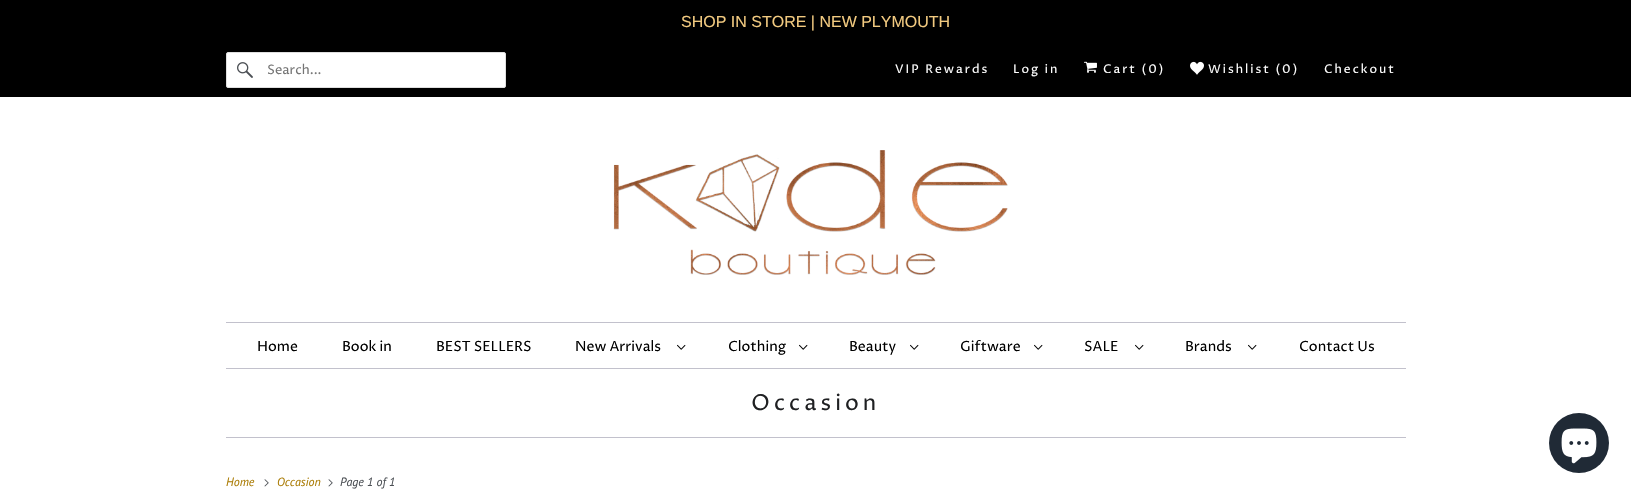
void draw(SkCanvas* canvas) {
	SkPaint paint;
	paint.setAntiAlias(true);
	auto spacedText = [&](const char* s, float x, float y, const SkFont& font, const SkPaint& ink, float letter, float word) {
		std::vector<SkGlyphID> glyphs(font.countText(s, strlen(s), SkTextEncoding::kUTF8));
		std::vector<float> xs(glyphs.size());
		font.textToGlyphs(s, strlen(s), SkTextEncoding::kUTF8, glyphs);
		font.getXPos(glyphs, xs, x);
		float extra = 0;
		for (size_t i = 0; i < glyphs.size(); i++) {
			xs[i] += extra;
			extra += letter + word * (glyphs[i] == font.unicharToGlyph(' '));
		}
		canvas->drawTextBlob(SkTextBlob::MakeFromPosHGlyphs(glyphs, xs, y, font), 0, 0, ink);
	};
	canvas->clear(0xffffffff);
	paint.setColor(0xff000000);
	canvas->drawRect(SkRect::MakeXYWH(0, 0, 1631, 97), paint);
	SkFont f1(fontMgr->matchFamilyStyle("Liberation Sans", SkFontStyle::Normal()), 16);
	f1.setSubpixel(true);
	paint.setColor(0xfff2ca80);
	canvas->drawString("SHOP IN STORE | NEW PLYMOUTH", 681, 27, f1, paint);
	paint.setColor(0xffffffff);
	canvas->drawRoundRect(SkRect::MakeXYWH(226.5, 52.5, 279, 35), 1.5, 1.5, paint);
	paint.setStroke(true);
	paint.setStrokeWidth(1);
	paint.setColor(0xffdfdfdf);
	canvas->drawRoundRect(SkRect::MakeXYWH(226.5, 52.5, 279, 35), 1.5, 1.5, paint);
	canvas->drawImageRect(SkImages::DeferredFromEncodedData(SkData::MakeFromFileName("img1.png")), SkRect::MakeXYWH(237, 62, 16, 16), SkSamplingOptions());
	SkFont f2(fontMgr->matchFamilyStyle("Proza Libre", SkFontStyle::Normal()), 13);
	f2.setSubpixel(true);
	paint.setStroke(false);
	paint.setColor(0xff757575);
	canvas->drawString("Search...", 267, 74, f2, paint);
	SkFont f3(fontMgr->matchFamilyStyle("Proza Libre", SkFontStyle::Normal()), 12);
	f3.setSubpixel(true);
	paint.setColor(0xffffffff);
	spacedText("VIP Rewards", 895, 73, f3, paint, 2, 0);
	spacedText("Log in", 1013, 73, f3, paint, 2, 0);
	canvas->drawImageRect(SkImages::DeferredFromEncodedData(SkData::MakeFromFileName("img2.png")), SkRect::MakeXYWH(1084, 61, 13, 12), SkSamplingOptions());
	spacedText("Cart (0)", 1103, 73, f3, paint, 2, 0);
	canvas->drawImageRect(SkImages::DeferredFromEncodedData(SkData::MakeFromFileName("img3.png")), SkRect::MakeXYWH(1190, 61, 14, 14), SkSamplingOptions());
	spacedText("Wishlist (0)", 1208, 73, f3, paint, 2, 0);
	spacedText("Checkout", 1324, 73, f3, paint, 2, 0);
	canvas->drawImageRect(SkImages::DeferredFromEncodedData(SkData::MakeFromFileName("img4.png")), SkRect::MakeXYWH(613, 150, 395, 125), SkSamplingOptions());
	paint.setColor(0xffc2c1cc);
	canvas->drawRect(SkRect::MakeXYWH(226, 322, 1180, 1), paint);
	canvas->drawRect(SkRect::MakeXYWH(226, 368, 1180, 1), paint);
	SkFont f4(fontMgr->matchFamilyStyle("Proza Libre", SkFontStyle::Normal()), 14);
	f4.setSubpixel(true);
	paint.setColor(0xff000000);
	canvas->drawString("Home", 257, 351, f4, paint);
	canvas->drawString("Book in", 342, 351, f4, paint);
	canvas->drawString("BEST SELLERS", 436, 351, f4, paint);
	canvas->drawString("New Arrivals", 575, 351, f4, paint);
	canvas->drawImageRect(SkImages::DeferredFromEncodedData(SkData::MakeFromFileName("img5.png")), SkRect::MakeXYWH(677, 344, 9, 6), SkSamplingOptions());
	canvas->drawString("Clothing", 728, 351, f4, paint);
	canvas->drawImageRect(SkImages::DeferredFromEncodedData(SkData::MakeFromFileName("img5.png")), SkRect::MakeXYWH(799, 344, 9, 6), SkSamplingOptions());
	canvas->drawString("Beauty", 849, 351, f4, paint);
	canvas->drawImageRect(SkImages::DeferredFromEncodedData(SkData::MakeFromFileName("img5.png")), SkRect::MakeXYWH(910, 344, 9, 6), SkSamplingOptions());
	canvas->drawString("Giftware", 960, 351, f4, paint);
	canvas->drawImageRect(SkImages::DeferredFromEncodedData(SkData::MakeFromFileName("img5.png")), SkRect::MakeXYWH(1034, 344, 9, 6), SkSamplingOptions());
	canvas->drawString("SALE", 1084, 351, f4, paint);
	canvas->drawImageRect(SkImages::DeferredFromEncodedData(SkData::MakeFromFileName("img5.png")), SkRect::MakeXYWH(1135, 344, 9, 6), SkSamplingOptions());
	canvas->drawString("Brands", 1185, 351, f4, paint);
	canvas->drawImageRect(SkImages::DeferredFromEncodedData(SkData::MakeFromFileName("img5.png")), SkRect::MakeXYWH(1248, 344, 9, 6), SkSamplingOptions());
	canvas->drawString("Contact Us", 1299, 351, f4, paint);
	paint.setColor(0xffc2c1cc);
	canvas->drawRect(SkRect::MakeXYWH(226, 437, 1180, 1), paint);
	SkFont f5(fontMgr->matchFamilyStyle("Proza Libre", SkFontStyle::Normal()), 22);
	f5.setSubpixel(true);
	paint.setColor(0xff1f2022);
	spacedText("Occasion", 751, 410, f5, paint, 4, 0);
	SkFont f6(fontMgr->matchFamilyStyle("PT Sans", SkFontStyle::Italic()), 12);
	f6.setSubpixel(true);
	paint.setColor(0xffab7d07);
	canvas->drawString("Home", 226, 486, f6, paint);
	canvas->drawImageRect(SkImages::DeferredFromEncodedData(SkData::MakeFromFileName("img6.png")), SkRect::MakeXYWH(264, 479, 5, 8), SkSamplingOptions());
	canvas->drawString("Occasion", 277, 486, f6, paint);
	canvas->drawImageRect(SkImages::DeferredFromEncodedData(SkData::MakeFromFileName("img6.png")), SkRect::MakeXYWH(328, 479, 5, 8), SkSamplingOptions());
	paint.setColor(0xff4b4f54);
	canvas->drawString("Page 1 of 1", 340, 486, f6, paint);
	paint.setColor(0xff202a36);
	canvas->drawCircle(1579, 443, 30, paint);
	canvas->drawImageRect(SkImages::DeferredFromEncodedData(SkData::MakeFromFileName("img7.png")), SkRect::MakeXYWH(1561, 428, 36, 36), SkSamplingOptions());
}
